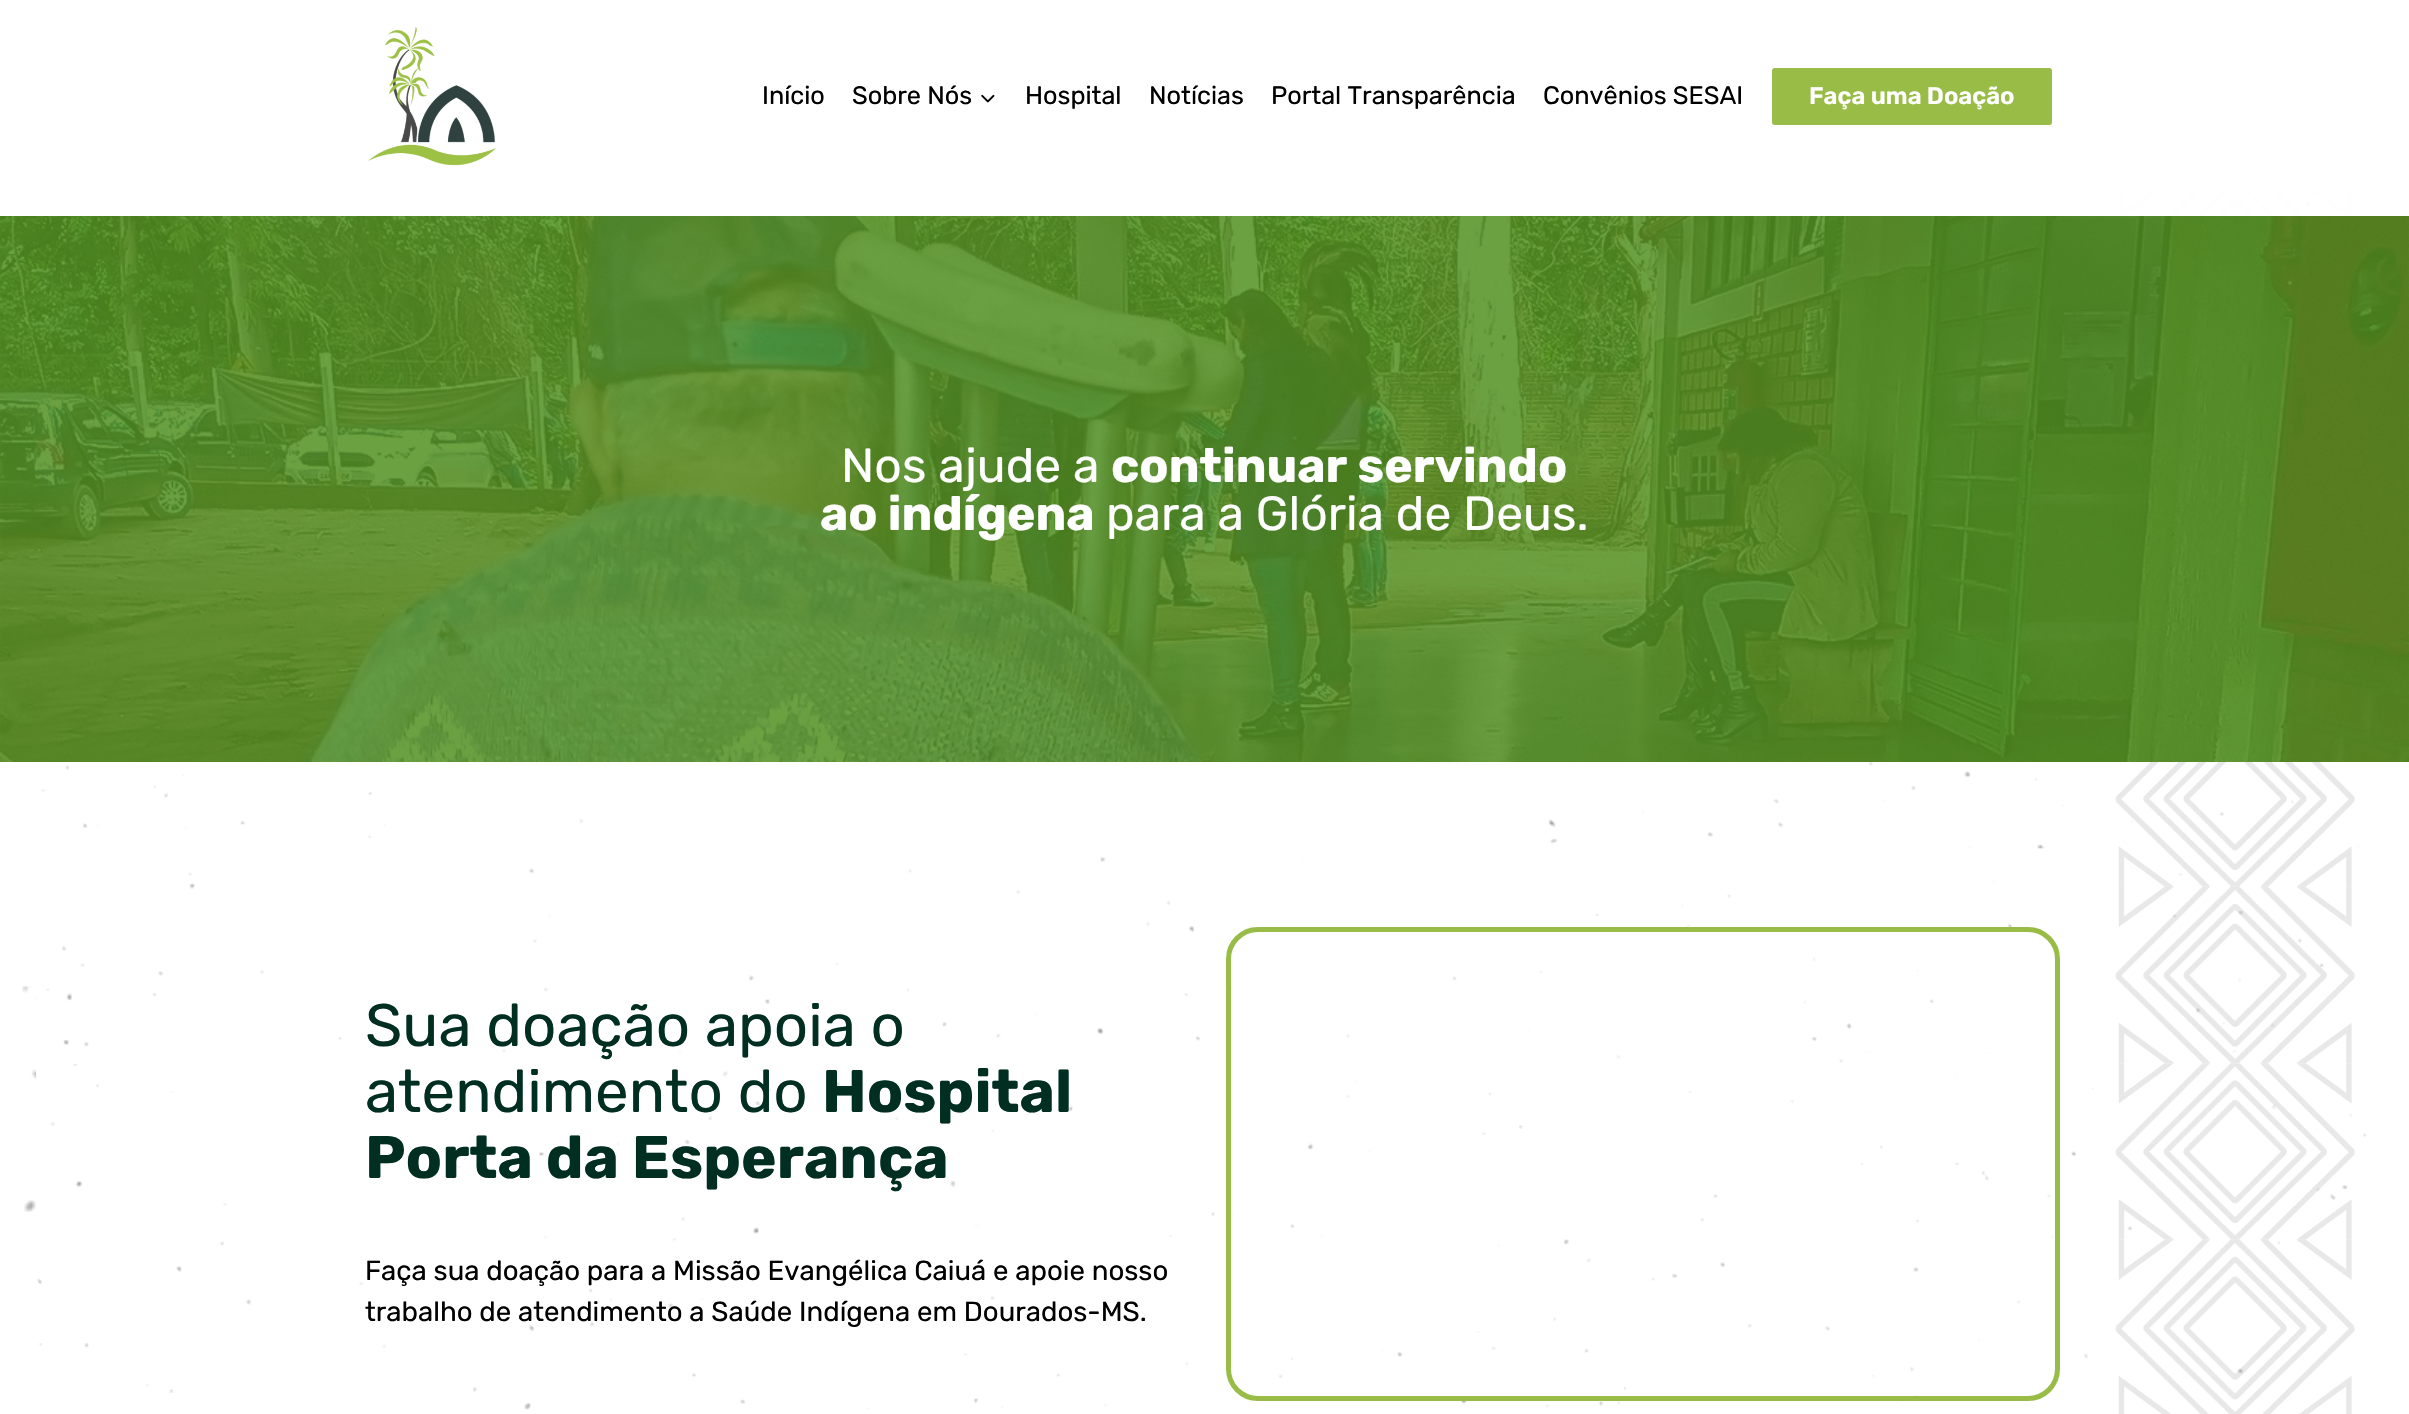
void draw(SkCanvas* canvas) {
	SkPaint paint;
	paint.setAntiAlias(true);
	canvas->clear(0xffffffff);
	canvas->drawImageRect(SkImages::DeferredFromEncodedData(SkData::MakeFromFileName("img1.png")), SkRect::MakeXYWH(368, 27, 128, 139), SkSamplingOptions());
	SkFont f1(fontMgr->matchFamilyStyle("Rubik", SkFontStyle::Normal()), 25.25);
	f1.setSubpixel(true);
	paint.setColor(0xff000000);
	canvas->drawString("Início", 762, 104, f1, paint);
	canvas->drawString("Sobre Nós", 852, 104, f1, paint);
	canvas->drawImageRect(SkImages::DeferredFromEncodedData(SkData::MakeFromFileName("img2.png")), SkRect::MakeXYWH(981, 94, 14, 9), SkSamplingOptions());
	canvas->drawString("Hospital", 1025, 104, f1, paint);
	canvas->drawString("Notícias", 1149, 104, f1, paint);
	canvas->drawString("Portal Transparência", 1271, 104, f1, paint);
	canvas->drawString("Convênios SESAI", 1543, 104, f1, paint);
	paint.setColor(0xff98bc45);
	canvas->drawRoundRect(SkRect::MakeXYWH(1772, 68, 280, 57), 3, 3, paint);
	SkFont f2(fontMgr->matchFamilyStyle("Rubik", SkFontStyle(600, SkFontStyle::kNormal_Width, SkFontStyle::kUpright_Slant)), 24);
	f2.setSubpixel(true);
	paint.setColor(0xffffffff);
	canvas->drawString("Faça uma Doação", 1809, 104, f2, paint);
	canvas->drawImageRect(SkImages::DeferredFromEncodedData(SkData::MakeFromFileName("img3.png")), SkRect::MakeXYWH(22, 192, 2373, 1222), SkSamplingOptions());
	canvas->drawRect(SkRect::MakeXYWH(108, 1410, 1855, 4), paint);
	canvas->drawImageRect(SkImages::DeferredFromEncodedData(SkData::MakeFromFileName("img4.png")), SkRect::MakeXYWH(36, 192, 2337, 1218), SkSamplingOptions());
	canvas->drawImageRect(SkImages::DeferredFromEncodedData(SkData::MakeFromFileName("img6.png")), SkRect::MakeXYWH(2115, 192, 240, 1222), SkSamplingOptions());
	{
		const SkColor colors[] = {0xebffffff, 0x00ffffff};
		const float stops[] = {0.74, 1};
		const SkPoint ends[] = {{1219, -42}, {1190, 804}};
		paint.setShader(SkGradientShader::MakeLinear(ends, colors, stops, 2, SkTileMode::kClamp));
		paint.setAlpha(255);
	}
	canvas->drawRect(SkRect::MakeXYWH(32, 192, 2363, 570), paint);
	canvas->drawImageRect(SkImages::DeferredFromEncodedData(SkData::MakeFromFileName("img5.png")), SkRect::MakeXYWH(0, 216, 2409, 546), SkSamplingOptions());
	paint.setShader(nullptr);
	paint.setColor(0xd9529021);
	canvas->drawRect(SkRect::MakeXYWH(0, 216, 2409, 546), paint);
	SkFont f3(fontMgr->matchFamilyStyle("Rubik", SkFontStyle::Normal()), 48);
	f3.setSubpixel(true);
	paint.setColor(0xffffffff);
	canvas->drawString("Nos ajude a", 841, 482, f3, paint);
	SkFont f4(fontMgr->matchFamilyStyle("Rubik", SkFontStyle::Bold()), 48);
	f4.setSubpixel(true);
	canvas->drawString("continuar servindo", 1111, 482, f4, paint);
	canvas->drawString("ao indígena", 820, 530, f4, paint);
	canvas->drawString("para a Glória de Deus.", 1106, 530, f3, paint);
	SkFont f5(fontMgr->matchFamilyStyle("Rubik", SkFontStyle::Normal()), 60);
	f5.setSubpixel(true);
	paint.setColor(0xff002e21);
	canvas->drawString("Sua doação apoia o", 365, 1046, f5, paint);
	canvas->drawString("atendimento do", 365, 1112, f5, paint);
	SkFont f6(fontMgr->matchFamilyStyle("Rubik", SkFontStyle::Bold()), 60);
	f6.setSubpixel(true);
	canvas->drawString("Hospital", 822, 1112, f6, paint);
	canvas->drawString("Porta da Esperança", 365, 1178, f6, paint);
	SkFont f7(fontMgr->matchFamilyStyle("Rubik", SkFontStyle::Normal()), 27.6);
	f7.setSubpixel(true);
	paint.setColor(0xff000000);
	canvas->drawString("Faça sua doação para a Missão Evangélica Caiuá e apoie nosso", 365, 1280, f7, paint);
	canvas->drawString("trabalho de atendimento a Saúde Indígena em Dourados-MS.", 365, 1321, f7, paint);
	paint.setStroke(true);
	paint.setStrokeWidth(5);
	paint.setColor(0xff98bc45);
	canvas->drawRoundRect(SkRect::MakeXYWH(1228.5, 929.5, 829, 469), 29.5, 29.5, paint);
}
